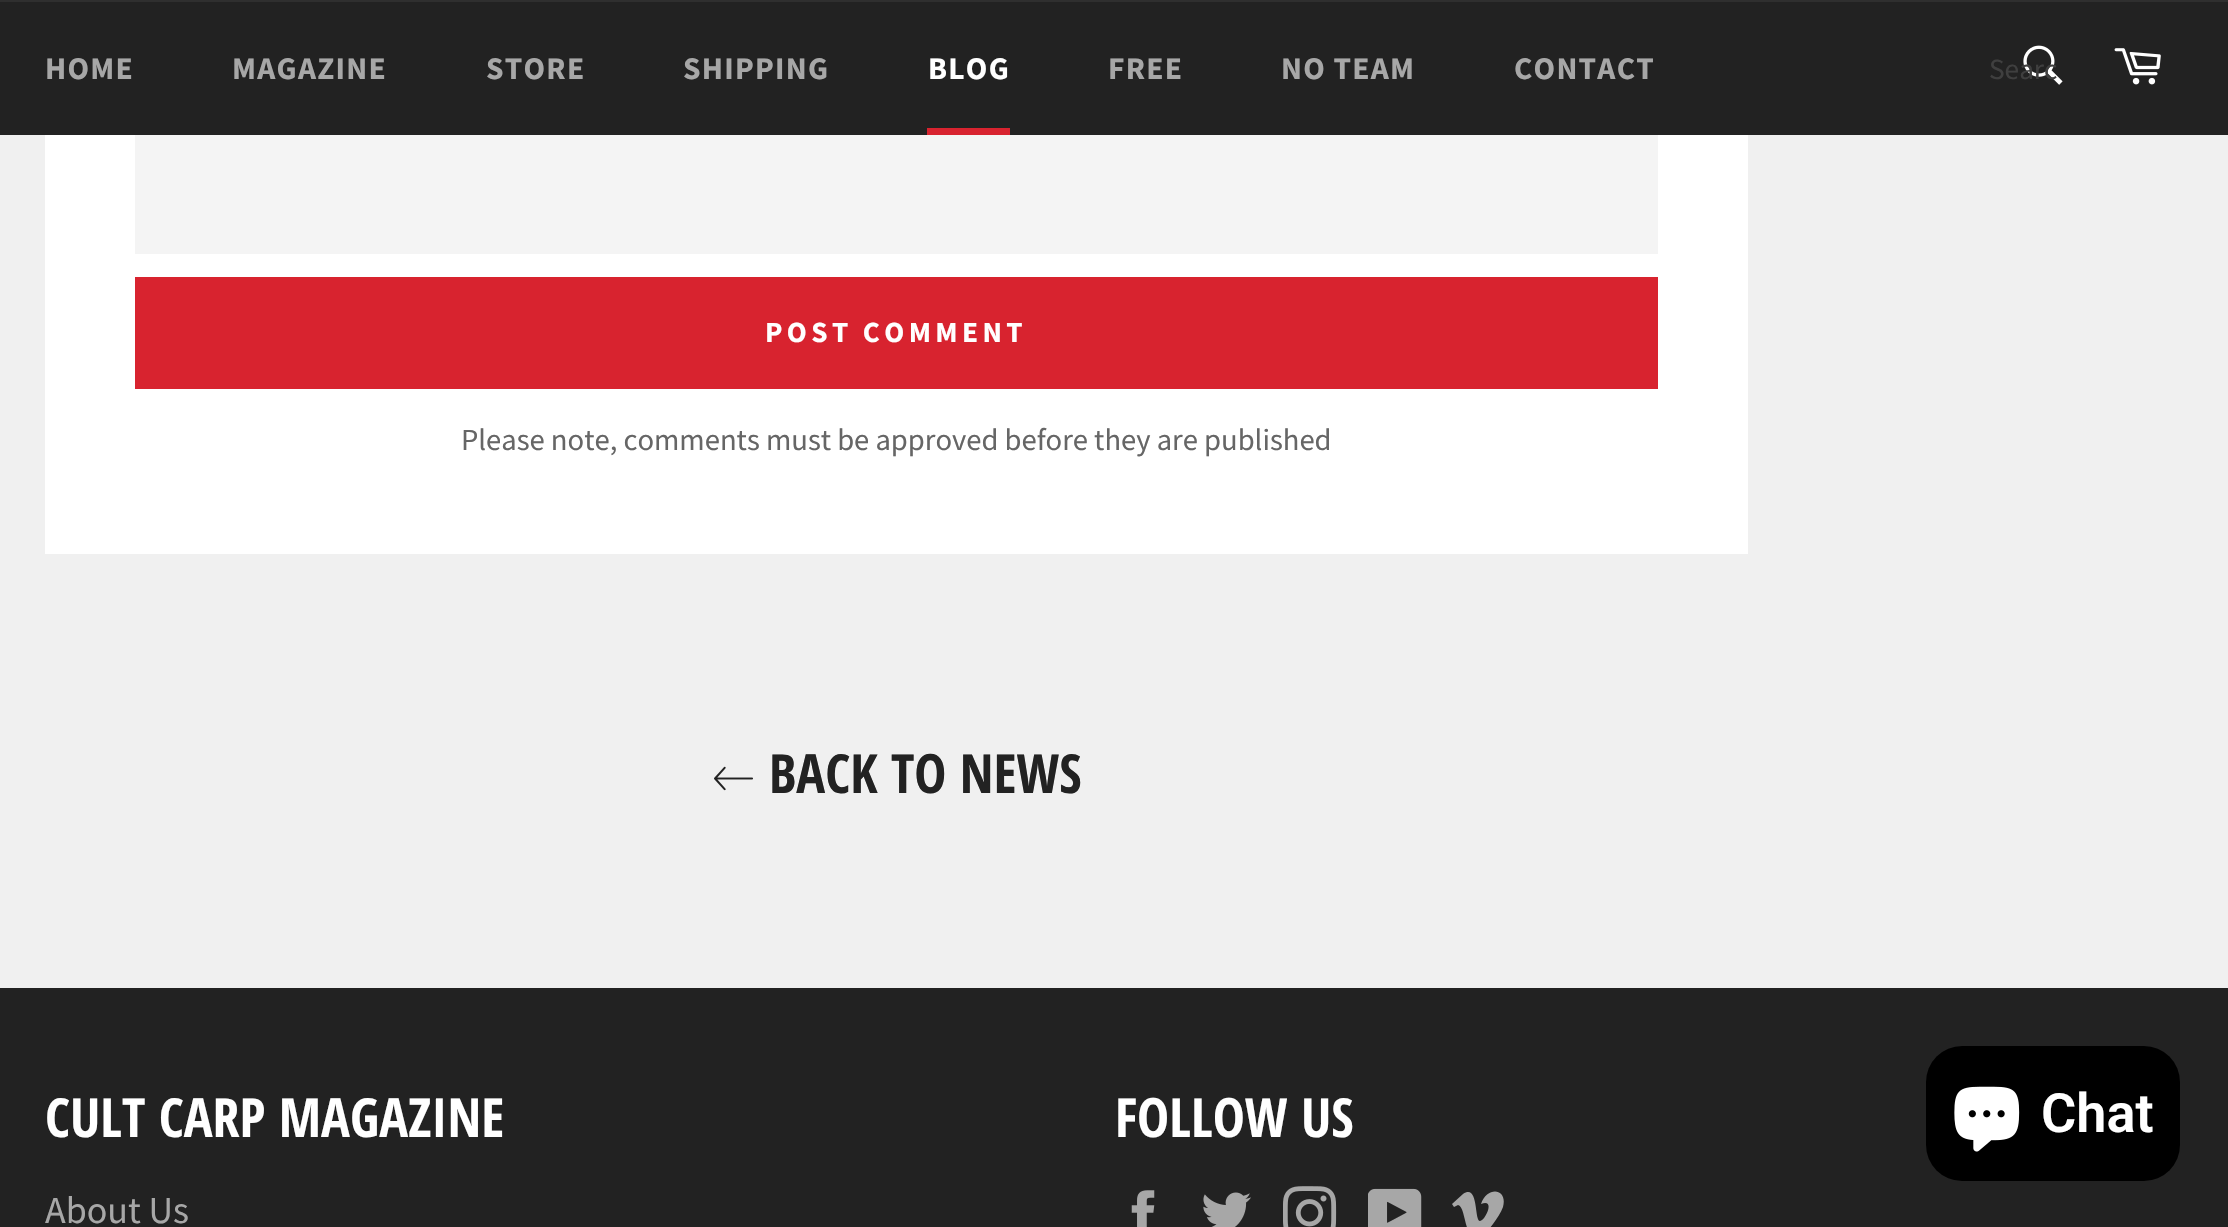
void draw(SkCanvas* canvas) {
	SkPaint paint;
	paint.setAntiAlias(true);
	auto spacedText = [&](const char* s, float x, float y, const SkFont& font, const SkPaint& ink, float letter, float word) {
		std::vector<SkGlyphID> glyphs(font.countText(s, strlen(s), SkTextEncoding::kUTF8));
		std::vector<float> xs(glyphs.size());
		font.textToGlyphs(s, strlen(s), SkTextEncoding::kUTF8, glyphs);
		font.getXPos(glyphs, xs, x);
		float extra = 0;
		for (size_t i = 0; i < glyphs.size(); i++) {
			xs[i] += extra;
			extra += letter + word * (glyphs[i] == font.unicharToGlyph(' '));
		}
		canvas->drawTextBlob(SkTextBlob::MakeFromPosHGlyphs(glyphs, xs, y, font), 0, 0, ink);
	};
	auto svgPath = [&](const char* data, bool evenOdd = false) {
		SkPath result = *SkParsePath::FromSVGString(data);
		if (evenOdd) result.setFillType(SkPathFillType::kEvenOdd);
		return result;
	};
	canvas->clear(0xfff0f0f0);
	paint.setColor(0xff222222);
	canvas->drawRect(SkRect::MakeXYWH(0, 2, 2228, 133), paint);
	paint.setColor(0xff2f2f2f);
	canvas->drawRect(SkRect::MakeXYWH(0, 0, 2228, 2), paint);
	SkFont f1(fontMgr->matchFamilyStyle("Source Sans Pro", SkFontStyle::Bold()), 31.5);
	f1.setSubpixel(true);
	paint.setColor(0xffa7a7a7);
	spacedText("HOME", 45, 79, f1, paint, 1.25, 0);
	spacedText("MAGAZINE", 232, 79, f1, paint, 1.25, 0);
	spacedText("STORE", 486, 79, f1, paint, 1.25, 0);
	spacedText("SHIPPING", 683, 79, f1, paint, 1.25, 0);
	paint.setColor(0xffffffff);
	spacedText("BLOG", 928, 79, f1, paint, 1.25, 0);
	paint.setColor(0xffd8232f);
	canvas->drawRect(SkRect::MakeXYWH(927, 128, 83, 7), paint);
	paint.setColor(0xffa7a7a7);
	spacedText("FREE", 1108, 79, f1, paint, 1.25, 0);
	spacedText("NO TEAM", 1281, 79, f1, paint, 1.25, 0);
	spacedText("CONTACT", 1514, 79, f1, paint, 1.25, 0);
	canvas->drawImageRect(SkImages::DeferredFromEncodedData(SkData::MakeFromFileName("img1.png")), SkRect::MakeXYWH(2023, 45, 40, 40), SkSamplingOptions());
	SkFont f2(fontMgr->matchFamilyStyle("Source Sans Pro", SkFontStyle::Normal()), 29.25);
	f2.setSubpixel(true);
	paint.setColor(0xff3f3f3f);
	canvas->drawString("Searc", 1989, 79, f2, paint);
	canvas->drawImageRect(SkImages::DeferredFromEncodedData(SkData::MakeFromFileName("img2.png")), SkRect::MakeXYWH(2114, 48, 47, 37), SkSamplingOptions());
	paint.setColor(0xffffffff);
	canvas->drawRect(SkRect::MakeXYWH(45, 135, 1703, 419), paint);
	paint.setColor(0xfff4f4f4);
	canvas->drawRect(SkRect::MakeXYWH(135, 135, 1523, 119), paint);
	paint.setColor(0xffd8232f);
	canvas->drawRect(SkRect::MakeXYWH(135, 277, 1523, 112), paint);
	SkFont f3(fontMgr->matchFamilyStyle("Source Sans Pro", SkFontStyle::Bold()), 29.25);
	f3.setSubpixel(true);
	paint.setColor(0xffffffff);
	spacedText("POST COMMENT", 765, 342, f3, paint, 4.4, 0);
	SkFont f4(fontMgr->matchFamilyStyle("Source Sans Pro", SkFontStyle::Normal()), 30.6);
	f4.setSubpixel(true);
	paint.setColor(0xff666666);
	canvas->drawString("Please note, comments must be approved before they are published", 461, 450, f4, paint);
	canvas->drawImageRect(SkImages::DeferredFromEncodedData(SkData::MakeFromFileName("img3.png")), SkRect::MakeXYWH(714, 766, 39, 25), SkSamplingOptions());
	SkFont f5(fontMgr->matchFamilyStyle("Open Sans Condensed", SkFontStyle::Bold()), 54);
	f5.setSubpixel(true);
	paint.setColor(0xff222222);
	canvas->drawString("BACK TO NEWS", 769, 793, f5, paint);
	canvas->drawRect(SkRect::MakeXYWH(0, 988, 2228, 239), paint);
	paint.setColor(0xffffffff);
	canvas->drawString("CULT CARP MAGAZINE", 45, 1137, f5, paint);
	SkFont f6(fontMgr->matchFamilyStyle("Source Sans Pro", SkFontStyle::Normal()), 38);
	f6.setSubpixel(true);
	paint.setColor(0xffa7a7a7);
	canvas->drawString("About Us", 45, 1223, f6, paint);
	paint.setColor(0xffffffff);
	canvas->drawString("FOLLOW US", 1115, 1137, f5, paint);
	canvas->drawImageRect(SkImages::DeferredFromEncodedData(SkData::MakeFromFileName("img4.png")), SkRect::MakeXYWH(1131, 1190, 24, 37), SkSamplingOptions());
	canvas->drawImageRect(SkImages::DeferredFromEncodedData(SkData::MakeFromFileName("img5.png")), SkRect::MakeXYWH(1203, 1192, 48, 35), SkSamplingOptions());
	canvas->drawImageRect(SkImages::DeferredFromEncodedData(SkData::MakeFromFileName("img6.png")), SkRect::MakeXYWH(1283, 1186, 54, 41), SkSamplingOptions());
	canvas->drawImageRect(SkImages::DeferredFromEncodedData(SkData::MakeFromFileName("img7.png")), SkRect::MakeXYWH(1368, 1188, 54, 39), SkSamplingOptions());
	paint.setColor(0xffa7a7a7);
	canvas->drawPath(svgPath("M1452 1204L1454 1207L1458 1205C1466 1206 1464 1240 1477 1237C1484 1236 1489 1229 1493 1224C1497 1218 1501 1213 1503 1207C1508 1188 1487 1186 1481 1204C1496 1198 1485 1221 1480 1221C1474 1221 1479 1183 1463 1194Z"), paint);
	paint.setColor(0xff000000);
	canvas->drawRoundRect(SkRect::MakeXYWH(1926, 1046, 254, 135), 36, 36, paint);
	canvas->drawImageRect(SkImages::DeferredFromEncodedData(SkData::MakeFromFileName("img8.png")), SkRect::MakeXYWH(1954, 1086, 66, 66), SkSamplingOptions());
	SkFont f7(fontMgr->matchFamilyStyle("Roboto", SkFontStyle(600, SkFontStyle::kNormal_Width, SkFontStyle::kUpright_Slant)), 54);
	f7.setSubpixel(true);
	paint.setColor(0xffffffff);
	canvas->drawString("Chat", 2041, 1132, f7, paint);
}
